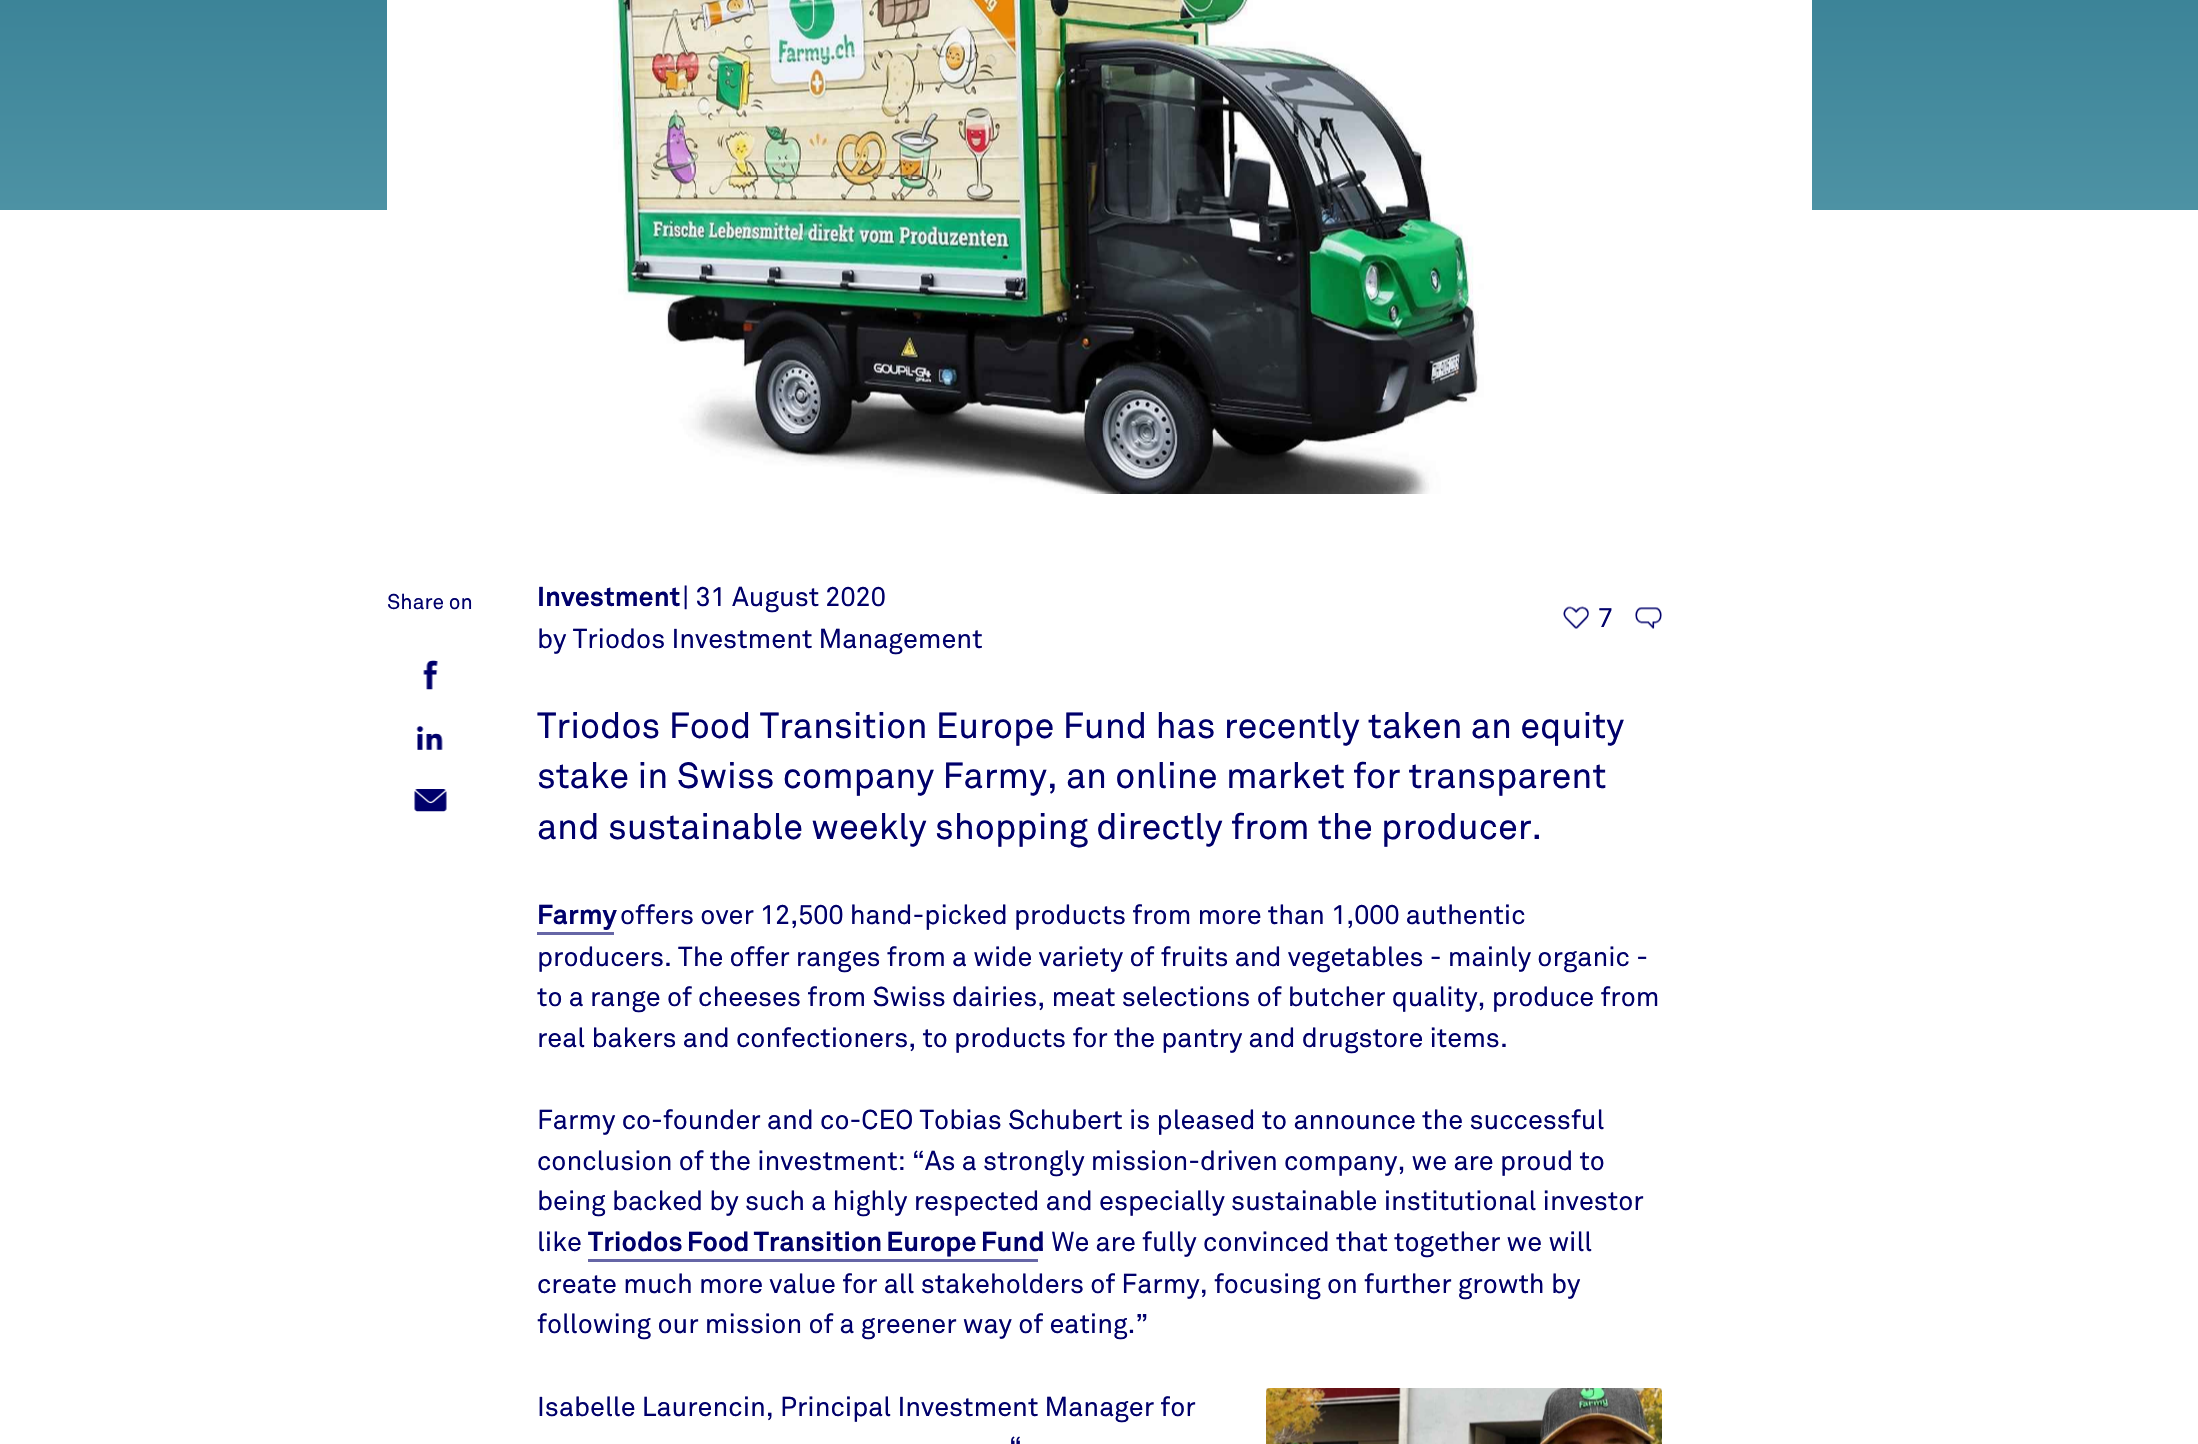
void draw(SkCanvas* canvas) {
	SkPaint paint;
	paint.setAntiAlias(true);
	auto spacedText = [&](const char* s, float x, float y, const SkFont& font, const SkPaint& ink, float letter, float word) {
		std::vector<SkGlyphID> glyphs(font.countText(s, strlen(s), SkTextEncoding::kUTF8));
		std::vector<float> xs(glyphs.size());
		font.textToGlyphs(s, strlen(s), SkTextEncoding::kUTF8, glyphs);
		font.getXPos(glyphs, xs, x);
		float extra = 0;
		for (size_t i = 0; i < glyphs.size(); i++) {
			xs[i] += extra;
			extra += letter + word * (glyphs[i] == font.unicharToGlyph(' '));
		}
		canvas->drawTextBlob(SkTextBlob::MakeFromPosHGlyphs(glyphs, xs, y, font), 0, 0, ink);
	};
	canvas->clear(0xffffffff);
	{
		const SkColor colors[] = {0xff00637d, 0xff126982, 0xff1e6e87, 0xff27748b, 0xff307a90, 0xff3f869a, 0xff4d92a4};
		const float stops[] = {0, 0.12, 0.25, 0.38, 0.5, 0.75, 1};
		const SkPoint ends[] = {{1100, -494}, {1100, 210}};
		paint.setShader(SkGradientShader::MakeLinear(ends, colors, stops, 7, SkTileMode::kClamp));
		paint.setAlpha(255);
	}
	canvas->drawRect(SkRect::MakeXYWH(0, 0, 2198, 210), paint);
	canvas->drawImageRect(SkImages::DeferredFromEncodedData(SkData::MakeFromFileName("img1.png")), SkRect::MakeXYWH(387, 0, 1425, 494), SkSamplingOptions());
	SkFont f1(fontMgr->matchFamilyStyle("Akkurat", SkFontStyle::Bold()), 27);
	f1.setSubpixel(true);
	paint.setShader(nullptr);
	paint.setColor(0xff00006b);
	canvas->drawString("Investment", 537, 606, f1, paint);
	SkFont f2(fontMgr->matchFamilyStyle("Akkurat", SkFontStyle::Normal()), 27);
	f2.setSubpixel(true);
	canvas->drawString("| 31 August 2020", 682, 606, f2, paint);
	canvas->drawString("by Triodos Investment Management", 537, 648, f2, paint);
	canvas->drawImageRect(SkImages::DeferredFromEncodedData(SkData::MakeFromFileName("img2.png")), SkRect::MakeXYWH(1563, 606, 26, 23), SkSamplingOptions());
	canvas->drawString("7", 1598, 627, f2, paint);
	canvas->drawImageRect(SkImages::DeferredFromEncodedData(SkData::MakeFromFileName("img3.png")), SkRect::MakeXYWH(1635, 607, 27, 22), SkSamplingOptions());
	SkFont f3(fontMgr->matchFamilyStyle("Akkurat", SkFontStyle::Normal()), 21);
	f3.setSubpixel(true);
	canvas->drawString("Share on", 387, 609, f3, paint);
	canvas->drawImageRect(SkImages::DeferredFromEncodedData(SkData::MakeFromFileName("img4.png")), SkRect::MakeXYWH(423, 660, 15, 30), SkSamplingOptions());
	canvas->drawImageRect(SkImages::DeferredFromEncodedData(SkData::MakeFromFileName("img5.png")), SkRect::MakeXYWH(416, 726, 27, 24), SkSamplingOptions());
	canvas->drawImageRect(SkImages::DeferredFromEncodedData(SkData::MakeFromFileName("img6.png")), SkRect::MakeXYWH(414, 789, 33, 23), SkSamplingOptions());
	SkFont f4(fontMgr->matchFamilyStyle("Akkurat", SkFontStyle::Normal()), 36);
	f4.setSubpixel(true);
	canvas->drawString("Triodos Food Transition Europe Fund has recently taken an equity", 537, 738, f4, paint);
	canvas->drawString("stake in Swiss company Farmy, an online market for transparent", 537, 788, f4, paint);
	canvas->drawString("and sustainable weekly shopping directly from the producer.", 537, 839, f4, paint);
	canvas->drawString("Farmy", 537, 924, f1, paint);
	paint.setColor(0xff6666a6);
	canvas->drawRect(SkRect::MakeXYWH(537, 932, 77, 3), paint);
	paint.setColor(0xff00006b);
	canvas->drawString("offers over 12,500 hand-picked products from more than 1,000 authentic", 620, 924, f2, paint);
	canvas->drawString("producers. The offer ranges from a wide variety of fruits and vegetables - mainly organic -", 537, 966, f2, paint);
	canvas->drawString("to a range of cheeses from Swiss dairies, meat selections of butcher quality, produce from", 537, 1006, f2, paint);
	canvas->drawString("real bakers and confectioners, to products for the pantry and drugstore items.", 537, 1047, f2, paint);
	canvas->drawString("Farmy co-founder and co-CEO Tobias Schubert is pleased to announce the successful", 537, 1129, f2, paint);
	canvas->drawString("conclusion of the investment: “As a strongly mission-driven company, we are proud to", 537, 1170, f2, paint);
	canvas->drawString("being backed by such a highly respected and especially sustainable institutional investor", 537, 1210, f2, paint);
	canvas->drawString("like", 537, 1251, f2, paint);
	spacedText("Triodos Food Transition Europe Fund", 588, 1251, f1, paint, 0, -1.5);
	paint.setColor(0xff6666a6);
	canvas->drawRect(SkRect::MakeXYWH(588, 1259, 450, 3), paint);
	paint.setColor(0xff00006b);
	canvas->drawString(". We are fully convinced that together we will", 1037, 1251, f2, paint);
	canvas->drawString("create much more value for all stakeholders of Farmy, focusing on further growth by", 537, 1293, f2, paint);
	canvas->drawString("following our mission of a greener way of eating.”", 537, 1333, f2, paint);
	canvas->drawString("Isabelle Laurencin, Principal Investment Manager for", 537, 1416, f2, paint);
	canvas->drawString("“", 1009, 1456, f2, paint);
	canvas->drawImageRect(SkImages::DeferredFromEncodedData(SkData::MakeFromFileName("img7.png")), SkRect::MakeXYWH(1266, 1388, 396, 56), SkSamplingOptions());
}
